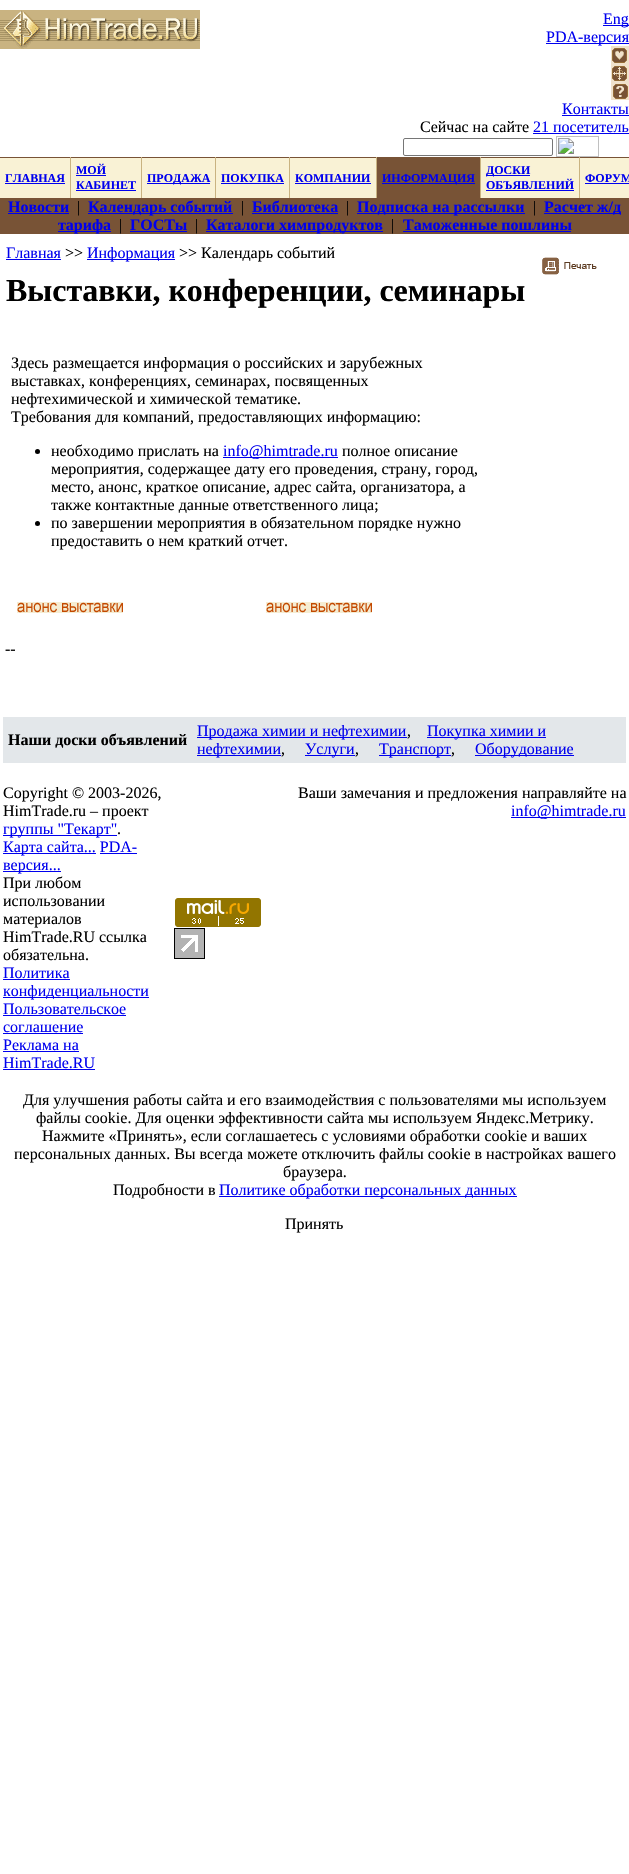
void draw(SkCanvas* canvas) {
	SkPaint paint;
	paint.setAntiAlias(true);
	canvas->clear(0xffffffff);
	canvas->drawImageRect(SkImages::DeferredFromEncodedData(SkData::MakeFromFileName("img1.png")), SkRect::MakeXYWH(0, 10, 200, 39), SkSamplingOptions());
	paint.setColor(0xff0000ee);
	canvas->drawRect(SkRect::MakeXYWH(603, 25, 26, 1), paint);
	SkFont f1(fontMgr->matchFamilyStyle("Liberation Serif", SkFontStyle::Normal()), 16);
	f1.setSubpixel(true);
	canvas->drawString("Eng", 603, 24, f1, paint);
	canvas->drawRect(SkRect::MakeXYWH(546, 43, 83, 1), paint);
	canvas->drawString("PDA-версия", 546, 42, f1, paint);
	canvas->drawImageRect(SkImages::DeferredFromEncodedData(SkData::MakeFromFileName("img2.png")), SkRect::MakeXYWH(611, 46, 18, 18), SkSamplingOptions());
	canvas->drawImageRect(SkImages::DeferredFromEncodedData(SkData::MakeFromFileName("img3.png")), SkRect::MakeXYWH(611, 64, 18, 18), SkSamplingOptions());
	canvas->drawImageRect(SkImages::DeferredFromEncodedData(SkData::MakeFromFileName("img4.png")), SkRect::MakeXYWH(611, 82, 18, 18), SkSamplingOptions());
	canvas->drawString("Контакты", 562, 114, f1, paint);
	canvas->drawRect(SkRect::MakeXYWH(562, 115, 67, 1), paint);
	paint.setColor(0xff000000);
	canvas->drawString("Сейчас на сайте", 420, 132, f1, paint);
	paint.setColor(0xff0000ee);
	canvas->drawString("21 посетитель", 533, 132, f1, paint);
	canvas->drawRect(SkRect::MakeXYWH(533, 133, 96, 1), paint);
	paint.setStroke(true);
	paint.setStrokeWidth(1);
	paint.setColor(0xff767676);
	canvas->drawRoundRect(SkRect::MakeXYWH(403.5, 138.5, 149, 17), 1.5, 1.5, paint);
	canvas->drawImageRect(SkImages::DeferredFromEncodedData(SkData::MakeFromFileName("img5.png")), SkRect::MakeXYWH(556, 136, 43, 21), SkSamplingOptions());
	paint.setStroke(false);
	paint.setColor(0xfff9f2d5);
	canvas->drawRect(SkRect::MakeXYWH(0, 158, 70, 40), paint);
	paint.setColor(0xff785336);
	canvas->drawRect(SkRect::MakeXYWH(0, 157, 377, 1), paint);
	paint.setColor(0xffc9b381);
	canvas->drawRect(SkRect::MakeXYWH(70, 157, 1, 41), paint);
	SkFont f2(fontMgr->matchFamilyStyle("Liberation Serif", SkFontStyle::Bold()), 12);
	f2.setSubpixel(true);
	paint.setColor(0xff0000ee);
	canvas->drawString("ГЛАВНАЯ", 5, 182, f2, paint);
	canvas->drawRect(SkRect::MakeXYWH(5, 183, 60, 1), paint);
	paint.setColor(0xfff9f2d5);
	canvas->drawRect(SkRect::MakeXYWH(71, 158, 70, 40), paint);
	paint.setColor(0xffc9b381);
	canvas->drawRect(SkRect::MakeXYWH(141, 157, 1, 41), paint);
	paint.setColor(0xff0000ee);
	canvas->drawString("МОЙ", 76, 174, f2, paint);
	canvas->drawRect(SkRect::MakeXYWH(76, 175, 30, 1), paint);
	canvas->drawString("КАБИНЕТ", 76, 189, f2, paint);
	canvas->drawRect(SkRect::MakeXYWH(76, 190, 60, 1), paint);
	paint.setColor(0xfff9f2d5);
	canvas->drawRect(SkRect::MakeXYWH(142, 158, 73, 40), paint);
	paint.setColor(0xffc9b381);
	canvas->drawRect(SkRect::MakeXYWH(215, 157, 1, 41), paint);
	paint.setColor(0xff0000ee);
	canvas->drawRect(SkRect::MakeXYWH(147, 183, 63, 1), paint);
	canvas->drawString("ПРОДАЖА", 147, 182, f2, paint);
	paint.setColor(0xfff9f2d5);
	canvas->drawRect(SkRect::MakeXYWH(216, 158, 73, 40), paint);
	paint.setColor(0xffc9b381);
	canvas->drawRect(SkRect::MakeXYWH(289, 157, 1, 41), paint);
	paint.setColor(0xff0000ee);
	canvas->drawString("ПОКУПКА", 221, 182, f2, paint);
	canvas->drawRect(SkRect::MakeXYWH(221, 183, 63, 1), paint);
	paint.setColor(0xfff9f2d5);
	canvas->drawRect(SkRect::MakeXYWH(290, 158, 86, 40), paint);
	paint.setColor(0xffc9b381);
	canvas->drawRect(SkRect::MakeXYWH(376, 157, 1, 41), paint);
	paint.setColor(0xff0000ee);
	canvas->drawString("КОМПАНИИ", 295, 182, f2, paint);
	canvas->drawRect(SkRect::MakeXYWH(295, 183, 76, 1), paint);
	paint.setColor(0xff785336);
	canvas->drawRect(SkRect::MakeXYWH(377, 157, 103, 41), paint);
	paint.setColor(0xffc9b381);
	canvas->drawRect(SkRect::MakeXYWH(480, 157, 1, 41), paint);
	paint.setColor(0xff0000ee);
	canvas->drawRect(SkRect::MakeXYWH(382, 183, 93, 1), paint);
	canvas->drawString("ИНФОРМАЦИЯ", 382, 182, f2, paint);
	paint.setColor(0xfff9f2d5);
	canvas->drawRect(SkRect::MakeXYWH(481, 158, 98, 40), paint);
	paint.setColor(0xff785336);
	canvas->drawRect(SkRect::MakeXYWH(481, 157, 148, 1), paint);
	paint.setColor(0xffc9b381);
	canvas->drawRect(SkRect::MakeXYWH(579, 157, 1, 41), paint);
	paint.setColor(0xff0000ee);
	canvas->drawRect(SkRect::MakeXYWH(486, 175, 44, 1), paint);
	canvas->drawString("ДОСКИ", 486, 174, f2, paint);
	canvas->drawString("ОБЪЯВЛЕНИЙ", 486, 189, f2, paint);
	canvas->drawRect(SkRect::MakeXYWH(486, 190, 88, 1), paint);
	paint.setColor(0xfff9f2d5);
	canvas->drawRect(SkRect::MakeXYWH(580, 158, 49, 40), paint);
	paint.setColor(0xff0000ee);
	canvas->drawString("ФОРУМ", 585, 182, f2, paint);
	canvas->drawRect(SkRect::MakeXYWH(585, 183, 44, 1), paint);
	paint.setColor(0xff785336);
	canvas->drawRect(SkRect::MakeXYWH(0, 198, 629, 36), paint);
	SkFont f3(fontMgr->matchFamilyStyle("Liberation Serif", SkFontStyle::Bold()), 16);
	f3.setSubpixel(true);
	paint.setColor(0xff0000ee);
	canvas->drawString("Новости", 8, 212, f3, paint);
	canvas->drawRect(SkRect::MakeXYWH(8, 213, 61, 1), paint);
	paint.setColor(0xff000000);
	canvas->drawString("|", 77, 212, f1, paint);
	paint.setColor(0xff0000ee);
	canvas->drawRect(SkRect::MakeXYWH(88, 213, 145, 1), paint);
	canvas->drawString("Календарь событий", 88, 212, f3, paint);
	paint.setColor(0xff000000);
	canvas->drawString("|", 241, 212, f1, paint);
	paint.setColor(0xff0000ee);
	canvas->drawString("Библиотека", 252, 212, f3, paint);
	canvas->drawRect(SkRect::MakeXYWH(252, 213, 86, 1), paint);
	paint.setColor(0xff000000);
	canvas->drawString("|", 346, 212, f1, paint);
	paint.setColor(0xff0000ee);
	canvas->drawRect(SkRect::MakeXYWH(357, 213, 168, 1), paint);
	canvas->drawString("Подписка на рассылки", 357, 212, f3, paint);
	paint.setColor(0xff000000);
	canvas->drawString("|", 533, 212, f1, paint);
	paint.setColor(0xff0000ee);
	canvas->drawRect(SkRect::MakeXYWH(544, 213, 77, 1), paint);
	canvas->drawString("Расчет ж/д", 544, 212, f3, paint);
	canvas->drawRect(SkRect::MakeXYWH(58, 231, 53, 1), paint);
	canvas->drawString("тарифа", 58, 230, f3, paint);
	paint.setColor(0xff000000);
	canvas->drawString("|", 119, 230, f1, paint);
	paint.setColor(0xff0000ee);
	canvas->drawString("ГОСТы", 130, 230, f3, paint);
	canvas->drawRect(SkRect::MakeXYWH(130, 231, 57, 1), paint);
	paint.setColor(0xff000000);
	canvas->drawString("|", 195, 230, f1, paint);
	paint.setColor(0xff0000ee);
	canvas->drawRect(SkRect::MakeXYWH(206, 231, 177, 1), paint);
	canvas->drawString("Каталоги химпродуктов", 206, 230, f3, paint);
	paint.setColor(0xff000000);
	canvas->drawString("|", 391, 230, f1, paint);
	paint.setColor(0xff0000ee);
	canvas->drawString("Таможенные пошлины", 403, 230, f3, paint);
	canvas->drawRect(SkRect::MakeXYWH(403, 231, 168, 1), paint);
	canvas->drawString("Главная", 6, 258, f1, paint);
	canvas->drawRect(SkRect::MakeXYWH(6, 259, 55, 1), paint);
	paint.setColor(0xff000000);
	canvas->drawString(">>", 65, 258, f1, paint);
	paint.setColor(0xff0000ee);
	canvas->drawRect(SkRect::MakeXYWH(87, 259, 88, 1), paint);
	canvas->drawString("Информация", 87, 258, f1, paint);
	paint.setColor(0xff000000);
	canvas->drawString(">> Календарь событий", 179, 258, f1, paint);
	SkFont f4(fontMgr->matchFamilyStyle("Liberation Serif", SkFontStyle::Bold()), 32);
	f4.setSubpixel(true);
	canvas->drawString("Выставки, конференции, семинары", 6, 301, f4, paint);
	canvas->drawImageRect(SkImages::DeferredFromEncodedData(SkData::MakeFromFileName("img6.png")), SkRect::MakeXYWH(542, 257, 55, 18), SkSamplingOptions());
	canvas->drawString("Здесь размещается информация о российских и зарубежных", 11, 368, f1, paint);
	canvas->drawString("выставках, конференциях, семинарах, посвященных", 11, 386, f1, paint);
	canvas->drawString("нефтехимической и химической тематике.", 11, 404, f1, paint);
	canvas->drawString("Требования для компаний, предоставляющих информацию:", 11, 422, f1, paint);
	canvas->drawCircle(37.5, 451.5, 2.5, paint);
	canvas->drawString("необходимо прислать на", 51, 456, f1, paint);
	paint.setColor(0xff0000ee);
	canvas->drawRect(SkRect::MakeXYWH(223, 457, 115, 1), paint);
	canvas->drawString("info@himtrade.ru", 223, 456, f1, paint);
	paint.setColor(0xff000000);
	canvas->drawString("полное описание", 342, 456, f1, paint);
	canvas->drawString("мероприятия, содержащее дату его проведения, страну, город,", 51, 474, f1, paint);
	canvas->drawString("место, анонс, краткое описание, адрес сайта, организатора, а", 51, 492, f1, paint);
	canvas->drawString("также контактные данные ответственного лица;", 51, 510, f1, paint);
	canvas->drawCircle(37.5, 523.5, 2.5, paint);
	canvas->drawString("по завершении мероприятия в обязательном порядке нужно", 51, 528, f1, paint);
	canvas->drawString("предоставить о нем краткий отчет.", 51, 546, f1, paint);
	canvas->drawImageRect(SkImages::DeferredFromEncodedData(SkData::MakeFromFileName("img7.png")), SkRect::MakeXYWH(17, 602, 106, 11), SkSamplingOptions());
	canvas->drawImageRect(SkImages::DeferredFromEncodedData(SkData::MakeFromFileName("img7.png")), SkRect::MakeXYWH(266, 602, 106, 11), SkSamplingOptions());
	canvas->drawString("--", 5, 654, f1, paint);
	paint.setColor(0xffe3e7ea);
	canvas->drawRect(SkRect::MakeXYWH(3, 717, 623, 46), paint);
	paint.setColor(0xff000000);
	canvas->drawString("Наши доски объявлений", 8, 745, f3, paint);
	paint.setColor(0xff0000ee);
	canvas->drawRect(SkRect::MakeXYWH(197, 737, 210, 1), paint);
	canvas->drawString("Продажа химии и нефтехимии", 197, 736, f1, paint);
	paint.setColor(0xff000000);
	canvas->drawString(",", 407, 736, f1, paint);
	paint.setColor(0xff0000ee);
	canvas->drawRect(SkRect::MakeXYWH(427, 737, 119, 1), paint);
	canvas->drawString("Покупка химии и", 427, 736, f1, paint);
	canvas->drawRect(SkRect::MakeXYWH(197, 755, 84, 1), paint);
	canvas->drawString("нефтехимии", 197, 754, f1, paint);
	paint.setColor(0xff000000);
	canvas->drawString(",", 281, 754, f1, paint);
	paint.setColor(0xff0000ee);
	canvas->drawRect(SkRect::MakeXYWH(305, 755, 50, 1), paint);
	canvas->drawString("Услуги", 305, 754, f1, paint);
	paint.setColor(0xff000000);
	canvas->drawString(",", 355, 754, f1, paint);
	paint.setColor(0xff0000ee);
	canvas->drawRect(SkRect::MakeXYWH(379, 755, 72, 1), paint);
	canvas->drawString("Транспорт", 379, 754, f1, paint);
	paint.setColor(0xff000000);
	canvas->drawString(",", 451, 754, f1, paint);
	paint.setColor(0xff0000ee);
	canvas->drawRect(SkRect::MakeXYWH(475, 755, 99, 1), paint);
	canvas->drawString("Оборудование", 475, 754, f1, paint);
	paint.setColor(0xff000000);
	canvas->drawString("Copyright © 2003-2026,", 3, 798, f1, paint);
	canvas->drawString("HimTrade.ru – проект", 3, 816, f1, paint);
	paint.setColor(0xff0000ee);
	canvas->drawRect(SkRect::MakeXYWH(3, 835, 114, 1), paint);
	canvas->drawString("группы \"Текарт\"", 3, 834, f1, paint);
	paint.setColor(0xff000000);
	canvas->drawString(".", 117, 834, f1, paint);
	paint.setColor(0xff0000ee);
	canvas->drawRect(SkRect::MakeXYWH(3, 853, 93, 1), paint);
	canvas->drawString("Карта сайта... PDA-", 3, 852, f1, paint);
	canvas->drawRect(SkRect::MakeXYWH(3, 871, 58, 1), paint);
	canvas->drawString("версия...", 3, 870, f1, paint);
	canvas->drawRect(SkRect::MakeXYWH(100, 853, 37, 1), paint);
	paint.setColor(0xff000000);
	canvas->drawString("При любом", 3, 888, f1, paint);
	canvas->drawString("использовании", 3, 906, f1, paint);
	canvas->drawString("материалов", 3, 924, f1, paint);
	canvas->drawString("HimTrade.RU ссылка", 3, 942, f1, paint);
	canvas->drawString("обязательна.", 3, 960, f1, paint);
	paint.setColor(0xff0000ee);
	canvas->drawString("Политика", 3, 978, f1, paint);
	canvas->drawRect(SkRect::MakeXYWH(3, 979, 67, 1), paint);
	canvas->drawRect(SkRect::MakeXYWH(3, 997, 146, 1), paint);
	canvas->drawString("конфиденциальности", 3, 996, f1, paint);
	canvas->drawString("Пользовательское", 3, 1014, f1, paint);
	canvas->drawRect(SkRect::MakeXYWH(3, 1015, 123, 1), paint);
	canvas->drawString("соглашение", 3, 1032, f1, paint);
	canvas->drawRect(SkRect::MakeXYWH(3, 1033, 80, 1), paint);
	canvas->drawString("Реклама на", 3, 1050, f1, paint);
	canvas->drawRect(SkRect::MakeXYWH(3, 1051, 76, 1), paint);
	canvas->drawString("HimTrade.RU", 3, 1068, f1, paint);
	canvas->drawRect(SkRect::MakeXYWH(3, 1069, 92, 1), paint);
	paint.setColor(0xff000000);
	canvas->drawString("Ваши замечания и предложения направляйте на", 298, 798, f1, paint);
	paint.setColor(0xff0000ee);
	canvas->drawRect(SkRect::MakeXYWH(511, 817, 115, 1), paint);
	canvas->drawString("info@himtrade.ru", 511, 816, f1, paint);
	canvas->drawImageRect(SkImages::DeferredFromEncodedData(SkData::MakeFromFileName("img8.png")), SkRect::MakeXYWH(175, 898, 86, 29), SkSamplingOptions());
	canvas->drawImageRect(SkImages::DeferredFromEncodedData(SkData::MakeFromFileName("img9.png")), SkRect::MakeXYWH(174, 928, 31, 31), SkSamplingOptions());
	paint.setColor(0xff000000);
	canvas->drawString("Для улучшения работы сайта и его взаимодействия с пользователями мы используем", 23, 1105, f1, paint);
	canvas->drawString("файлы cookie. Для оценки эффективности сайта мы используем Яндекс.Метрику.", 36, 1123, f1, paint);
	canvas->drawString("Нажмите «Принять», если соглашаетесь с условиями обработки cookie и ваших", 42, 1141, f1, paint);
	canvas->drawString("персональных данных. Вы всегда можете отключить файлы cookie в настройках вашего", 14, 1159, f1, paint);
	canvas->drawString("браузера.", 283, 1177, f1, paint);
	canvas->drawString("Подробности в", 113, 1195, f1, paint);
	paint.setColor(0xff0000ee);
	canvas->drawRect(SkRect::MakeXYWH(219, 1196, 298, 1), paint);
	canvas->drawString("Политике обработки персональных данных", 219, 1195, f1, paint);
	paint.setColor(0xff000000);
	canvas->drawString("Принять", 285, 1229, f1, paint);
}
